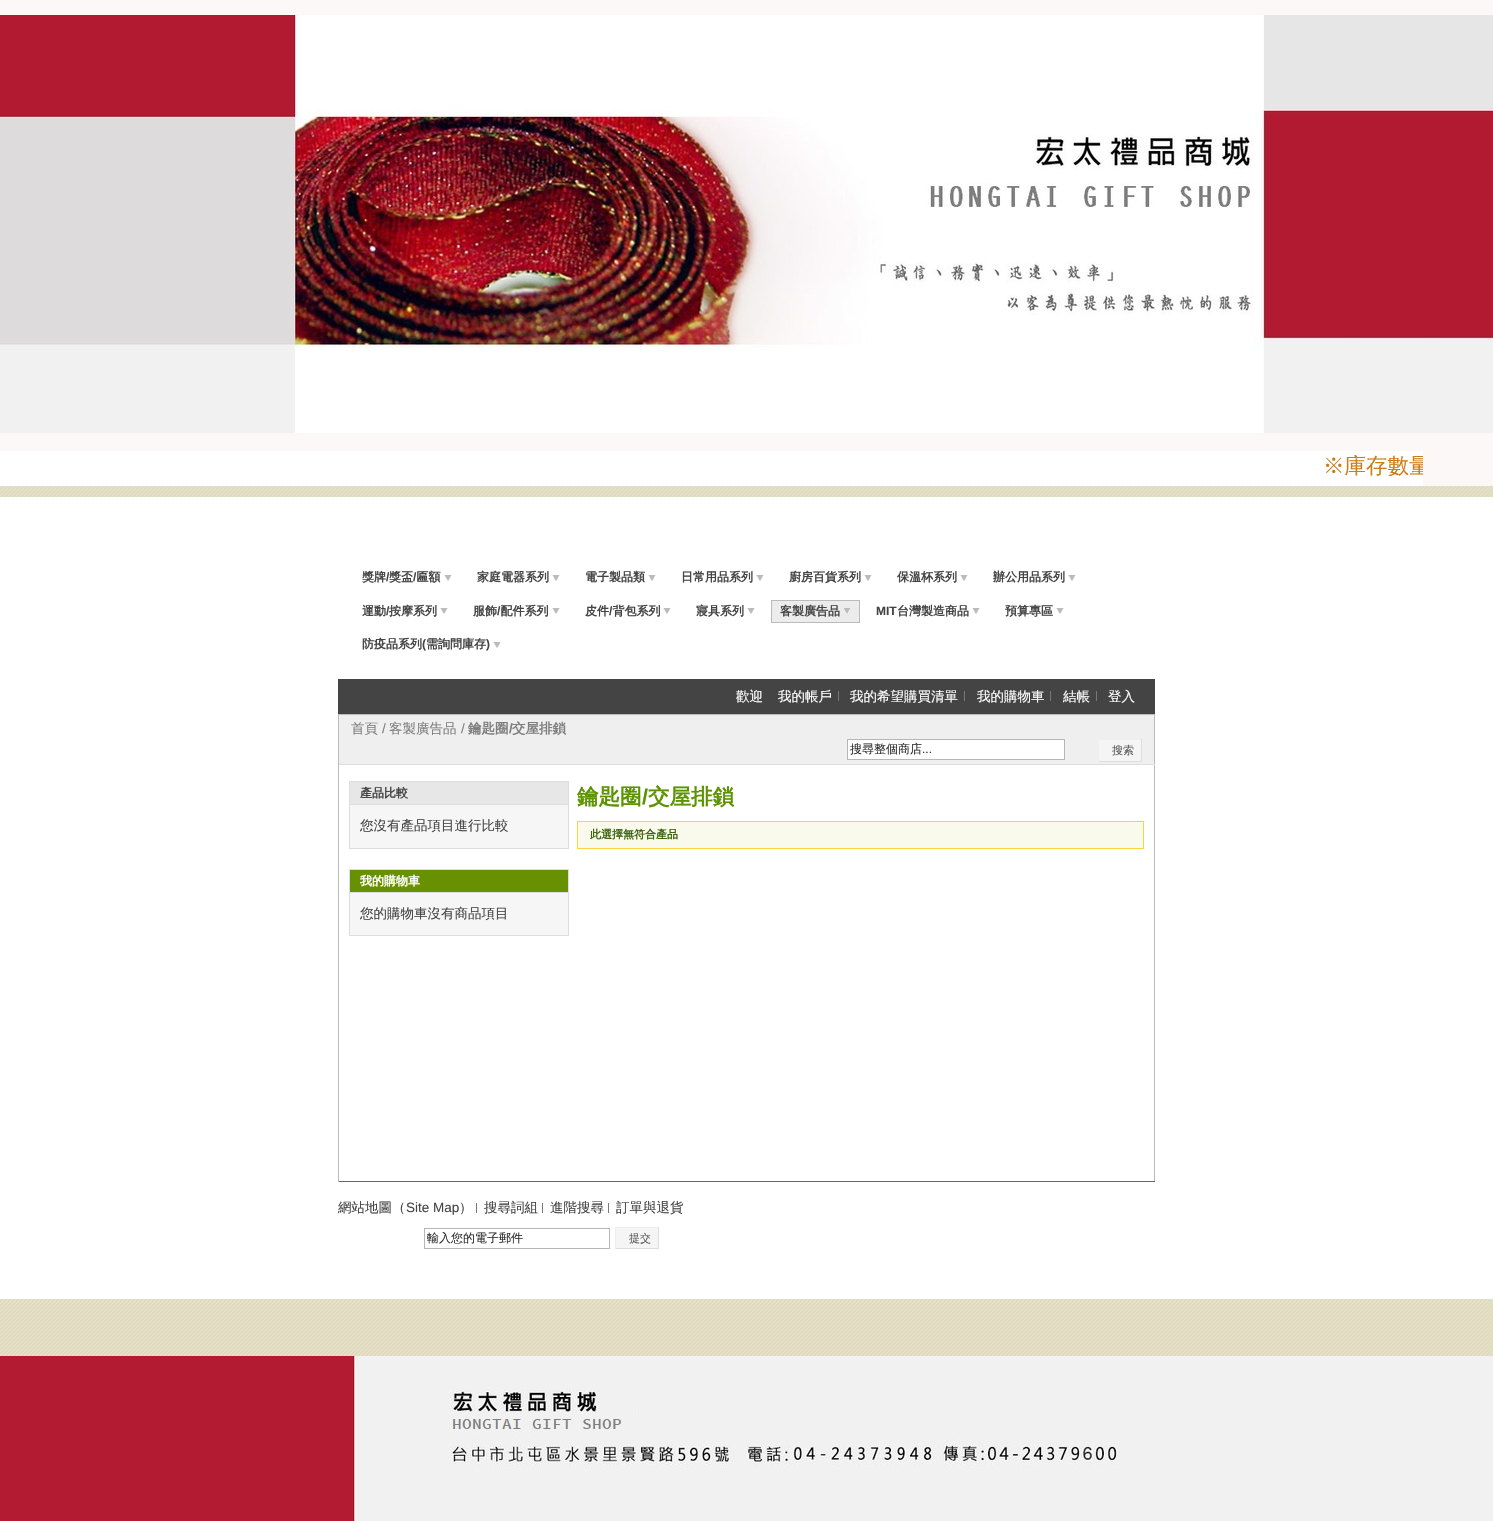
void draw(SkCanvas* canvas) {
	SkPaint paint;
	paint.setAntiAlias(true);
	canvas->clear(0xffffffff);
	canvas->drawImageRect(SkImages::DeferredFromEncodedData(SkData::MakeFromFileName("img1.png")), SkRect::MakeXYWH(0, 486, 1493, 870), SkSamplingOptions());
	paint.setColor(0xfffdf8f8);
	canvas->drawRect(SkRect::MakeXYWH(0, 0, 1493, 486), paint);
	canvas->drawImageRect(SkImages::DeferredFromEncodedData(SkData::MakeFromFileName("img2.png")), SkRect::MakeXYWH(0, 15, 1493, 418), SkSamplingOptions());
	paint.setColor(0xffffffff);
	canvas->drawRect(SkRect::MakeXYWH(0, 451, 1423, 35), paint);
	canvas->save();
	canvas->clipRect(SkRect::MakeXYWH(0, 451, 1423, 29));
	SkFont f1(fontMgr->matchFamilyStyle("WenQuanYi Zen Hei", SkFontStyle(500, SkFontStyle::kNormal_Width, SkFontStyle::kUpright_Slant)), 21.5);
	f1.setSubpixel(true);
	paint.setColor(0xffcb7c16);
	canvas->drawString("※庫存數量", 1323, 473, f1, paint);
	canvas->restore();
	paint.setColor(0xffffffff);
	canvas->drawRect(SkRect::MakeXYWH(0, 497, 1493, 802), paint);
	canvas->drawImageRect(SkImages::DeferredFromEncodedData(SkData::MakeFromFileName("img3.png")), SkRect::MakeXYWH(444, 575, 8, 6), SkSamplingOptions());
	SkFont f2(fontMgr->matchFamilyStyle("WenQuanYi Zen Hei", SkFontStyle::Bold()), 12);
	f2.setSubpixel(true);
	paint.setColor(0xff444444);
	canvas->drawString("獎牌", 362, 581, f2, paint);
	SkFont f3(fontMgr->matchFamilyStyle("Liberation Sans", SkFontStyle::Bold()), 12);
	f3.setSubpixel(true);
	canvas->drawString("/", 386, 581, f3, paint);
	canvas->drawString("獎盃 匾額", 389, 581, f2, paint);
	canvas->drawString("/", 413, 581, f3, paint);
	canvas->drawImageRect(SkImages::DeferredFromEncodedData(SkData::MakeFromFileName("img3.png")), SkRect::MakeXYWH(552, 575, 8, 6), SkSamplingOptions());
	canvas->drawString("家庭電器系列", 477, 581, f2, paint);
	canvas->drawImageRect(SkImages::DeferredFromEncodedData(SkData::MakeFromFileName("img3.png")), SkRect::MakeXYWH(648, 575, 8, 6), SkSamplingOptions());
	canvas->drawString("電子製品類", 585, 581, f2, paint);
	canvas->drawImageRect(SkImages::DeferredFromEncodedData(SkData::MakeFromFileName("img3.png")), SkRect::MakeXYWH(756, 575, 8, 6), SkSamplingOptions());
	canvas->drawString("日常用品系列", 681, 581, f2, paint);
	canvas->drawImageRect(SkImages::DeferredFromEncodedData(SkData::MakeFromFileName("img3.png")), SkRect::MakeXYWH(864, 575, 8, 6), SkSamplingOptions());
	canvas->drawString("廚房百貨系列", 789, 581, f2, paint);
	canvas->drawImageRect(SkImages::DeferredFromEncodedData(SkData::MakeFromFileName("img3.png")), SkRect::MakeXYWH(960, 575, 8, 6), SkSamplingOptions());
	canvas->drawString("保溫杯系列", 897, 581, f2, paint);
	canvas->drawImageRect(SkImages::DeferredFromEncodedData(SkData::MakeFromFileName("img3.png")), SkRect::MakeXYWH(1068, 575, 8, 6), SkSamplingOptions());
	canvas->drawString("辦公用品系列", 993, 581, f2, paint);
	canvas->drawImageRect(SkImages::DeferredFromEncodedData(SkData::MakeFromFileName("img3.png")), SkRect::MakeXYWH(440, 608, 8, 6), SkSamplingOptions());
	canvas->drawString("運動", 362, 615, f2, paint);
	canvas->drawString("/", 386, 615, f3, paint);
	canvas->drawString("按摩系列", 389, 615, f2, paint);
	canvas->drawImageRect(SkImages::DeferredFromEncodedData(SkData::MakeFromFileName("img3.png")), SkRect::MakeXYWH(552, 608, 8, 6), SkSamplingOptions());
	canvas->drawString("服飾 配件系列", 473, 615, f2, paint);
	canvas->drawString("/", 497, 615, f3, paint);
	canvas->drawImageRect(SkImages::DeferredFromEncodedData(SkData::MakeFromFileName("img3.png")), SkRect::MakeXYWH(663, 608, 8, 6), SkSamplingOptions());
	canvas->drawString("皮件 背包系列", 585, 615, f2, paint);
	canvas->drawString("/", 609, 615, f3, paint);
	canvas->drawImageRect(SkImages::DeferredFromEncodedData(SkData::MakeFromFileName("img3.png")), SkRect::MakeXYWH(747, 608, 8, 6), SkSamplingOptions());
	canvas->drawString("寢具系列", 696, 615, f2, paint);
	paint.setColor(0xffececec);
	canvas->drawRect(SkRect::MakeXYWH(771.5, 600.5, 88, 22), paint);
	paint.setStroke(true);
	paint.setStrokeWidth(1);
	paint.setColor(0xffbbbbbb);
	canvas->drawRect(SkRect::MakeXYWH(771.5, 600.5, 88, 22), paint);
	canvas->drawImageRect(SkImages::DeferredFromEncodedData(SkData::MakeFromFileName("img4.png")), SkRect::MakeXYWH(844, 608, 6, 6), SkSamplingOptions());
	paint.setStroke(false);
	paint.setColor(0xff444444);
	canvas->drawString("客製廣告品", 780, 615, f2, paint);
	canvas->drawImageRect(SkImages::DeferredFromEncodedData(SkData::MakeFromFileName("img3.png")), SkRect::MakeXYWH(972, 608, 8, 6), SkSamplingOptions());
	canvas->drawString("MIT", 876, 615, f3, paint);
	canvas->drawString("台灣製造商品", 897, 615, f2, paint);
	canvas->drawImageRect(SkImages::DeferredFromEncodedData(SkData::MakeFromFileName("img3.png")), SkRect::MakeXYWH(1056, 608, 8, 6), SkSamplingOptions());
	canvas->drawString("預算專區", 1005, 615, f2, paint);
	canvas->drawImageRect(SkImages::DeferredFromEncodedData(SkData::MakeFromFileName("img3.png")), SkRect::MakeXYWH(493, 642, 8, 6), SkSamplingOptions());
	canvas->drawString("防疫品系列", 362, 648, f2, paint);
	canvas->drawString("(", 422, 648, f3, paint);
	canvas->drawString("需詢問庫存", 426, 648, f2, paint);
	canvas->drawString(")", 486, 648, f3, paint);
	canvas->drawRect(SkRect::MakeXYWH(338, 679, 817, 35), paint);
	SkFont f4(fontMgr->matchFamilyStyle("WenQuanYi Zen Hei", SkFontStyle(500, SkFontStyle::kNormal_Width, SkFontStyle::kUpright_Slant)), 13.5);
	f4.setSubpixel(true);
	paint.setColor(0xffffffff);
	canvas->drawString("歡迎", 736, 701, f4, paint);
	canvas->drawString("我的帳戶", 778, 701, f4, paint);
	paint.setColor(0xff777777);
	canvas->drawRect(SkRect::MakeXYWH(838, 691, 1, 10), paint);
	paint.setColor(0xffffffff);
	canvas->drawString("我的希望購買清單", 850, 701, f4, paint);
	paint.setColor(0xff777777);
	canvas->drawRect(SkRect::MakeXYWH(964, 691, 1, 10), paint);
	paint.setColor(0xffffffff);
	canvas->drawString("我的購物車", 977, 701, f4, paint);
	paint.setColor(0xff777777);
	canvas->drawRect(SkRect::MakeXYWH(1050, 691, 1, 10), paint);
	paint.setColor(0xffffffff);
	canvas->drawString("結帳", 1063, 701, f4, paint);
	paint.setColor(0xff777777);
	canvas->drawRect(SkRect::MakeXYWH(1096, 691, 1, 10), paint);
	paint.setColor(0xffffffff);
	canvas->drawString("登入", 1108, 701, f4, paint);
	paint.setColor(0xffefefef);
	canvas->drawRect(SkRect::MakeXYWH(339, 715, 815, 49), paint);
	paint.setColor(0xffbbbbbb);
	canvas->drawRect(SkRect::MakeXYWH(338, 714, 817, 1), paint);
	canvas->drawRect(SkRect::MakeXYWH(1154, 714, 1, 468), paint);
	paint.setColor(0xffdedede);
	canvas->drawRect(SkRect::MakeXYWH(338, 764, 817, 1), paint);
	paint.setColor(0xffbbbbbb);
	canvas->drawRect(SkRect::MakeXYWH(338, 714, 1, 51), paint);
	paint.setColor(0xff7f7f7f);
	canvas->drawString("首頁", 351, 733, f4, paint);
	SkFont f5(fontMgr->matchFamilyStyle("Liberation Sans", SkFontStyle::Normal()), 13.5);
	f5.setSubpixel(true);
	canvas->drawString("/", 382, 733, f5, paint);
	canvas->drawString("客製廣告品", 389, 733, f4, paint);
	canvas->drawString("/", 461, 733, f5, paint);
	SkFont f6(fontMgr->matchFamilyStyle("WenQuanYi Zen Hei", SkFontStyle::Bold()), 13.5);
	f6.setSubpixel(true);
	canvas->drawString("鑰匙圈", 468, 733, f6, paint);
	SkFont f7(fontMgr->matchFamilyStyle("Liberation Sans", SkFontStyle::Bold()), 13.5);
	f7.setSubpixel(true);
	canvas->drawString("/", 509, 733, f7, paint);
	canvas->drawString("交屋排鎖", 512, 733, f6, paint);
	paint.setColor(0xffffffff);
	canvas->drawRect(SkRect::MakeXYWH(847.5, 739.5, 217, 20), paint);
	paint.setStroke(true);
	paint.setColor(0xffb6b6b6);
	canvas->drawRect(SkRect::MakeXYWH(847.5, 739.5, 217, 20), paint);
	SkFont f8(fontMgr->matchFamilyStyle("WenQuanYi Zen Hei", SkFontStyle(500, SkFontStyle::kNormal_Width, SkFontStyle::kUpright_Slant)), 12);
	f8.setSubpixel(true);
	paint.setStroke(false);
	paint.setColor(0xff2f2f2f);
	canvas->drawString("搜尋整個商店", 850, 753, f8, paint);
	SkFont f9(fontMgr->matchFamilyStyle("Liberation Sans", SkFontStyle::Normal()), 12);
	f9.setSubpixel(true);
	canvas->drawString("...", 922, 753, f9, paint);
	paint.setColor(0xfff5f5f5);
	canvas->drawRect(SkRect::MakeXYWH(1099, 740, 42, 21), paint);
	paint.setColor(0xffdedede);
	canvas->drawRect(SkRect::MakeXYWH(1141, 739, 1, 23), paint);
	canvas->drawRect(SkRect::MakeXYWH(1098, 761, 44, 1), paint);
	paint.setColor(0xffeeeeee);
	canvas->drawRect(SkRect::MakeXYWH(1098, 761, 1, 1), paint);
	SkFont f10(fontMgr->matchFamilyStyle("WenQuanYi Zen Hei", SkFontStyle(500, SkFontStyle::kNormal_Width, SkFontStyle::kUpright_Slant)), 11);
	f10.setSubpixel(true);
	paint.setColor(0xff565656);
	canvas->drawString("搜索", 1112, 754, f10, paint);
	paint.setColor(0xff666666);
	canvas->drawRect(SkRect::MakeXYWH(338, 1181, 817, 1), paint);
	paint.setColor(0xffbbbbbb);
	canvas->drawRect(SkRect::MakeXYWH(338, 765, 1, 417), paint);
	paint.setStroke(true);
	paint.setColor(0xffdddddd);
	canvas->drawRect(SkRect::MakeXYWH(349.5, 781.5, 219, 67), paint);
	paint.setStroke(false);
	paint.setColor(0xffe7e7e7);
	canvas->drawRect(SkRect::MakeXYWH(350, 782, 218, 22), paint);
	paint.setColor(0xffdddddd);
	canvas->drawRect(SkRect::MakeXYWH(350, 804, 218, 1), paint);
	paint.setColor(0xff444444);
	canvas->drawString("產品比較", 360, 797, f2, paint);
	paint.setColor(0xfff6f6f6);
	canvas->drawRect(SkRect::MakeXYWH(350, 805, 218, 43), paint);
	paint.setColor(0xff444444);
	canvas->drawString("您沒有產品項目進行比較", 360, 830, f4, paint);
	paint.setStroke(true);
	paint.setColor(0xffdddddd);
	canvas->drawRect(SkRect::MakeXYWH(349.5, 869.5, 219, 66), paint);
	paint.setStroke(false);
	paint.setColor(0xff679100);
	canvas->drawRect(SkRect::MakeXYWH(350, 870, 218, 22), paint);
	paint.setColor(0xffdddddd);
	canvas->drawRect(SkRect::MakeXYWH(350, 892, 218, 1), paint);
	paint.setColor(0xffffffff);
	canvas->drawString("我的購物車", 360, 885, f2, paint);
	paint.setColor(0xfff6f6f6);
	canvas->drawRect(SkRect::MakeXYWH(350, 893, 218, 42), paint);
	paint.setColor(0xff444444);
	canvas->drawString("您的購物車沒有商品項目", 360, 918, f4, paint);
	SkFont f11(fontMgr->matchFamilyStyle("WenQuanYi Zen Hei", SkFontStyle::Bold()), 21.5);
	f11.setSubpixel(true);
	paint.setColor(0xff5b9400);
	canvas->drawString("鑰匙圈", 577, 804, f11, paint);
	SkFont f12(fontMgr->matchFamilyStyle("Liberation Sans", SkFontStyle::Bold()), 21.5);
	f12.setSubpixel(true);
	canvas->drawString("/", 642, 804, f12, paint);
	canvas->drawString("交屋排鎖", 648, 804, f11, paint);
	paint.setColor(0xfffafaec);
	canvas->drawRect(SkRect::MakeXYWH(577.5, 821.5, 566, 27), paint);
	paint.setStroke(true);
	paint.setColor(0xfffcd344);
	canvas->drawRect(SkRect::MakeXYWH(577.5, 821.5, 566, 27), paint);
	SkFont f13(fontMgr->matchFamilyStyle("WenQuanYi Zen Hei", SkFontStyle::Bold()), 11);
	f13.setSubpixel(true);
	paint.setStroke(false);
	paint.setColor(0xff3d6611);
	canvas->drawString("此選擇無符合產品", 590, 838, f13, paint);
	paint.setColor(0xff444444);
	canvas->drawString("網站地圖（", 338, 1212, f4, paint);
	canvas->drawString("Site Map", 406, 1212, f5, paint);
	canvas->drawString("）", 459, 1212, f4, paint);
	canvas->drawString("搜尋詞組", 484, 1212, f4, paint);
	paint.setColor(0xff777777);
	canvas->drawRect(SkRect::MakeXYWH(476, 1203, 1, 10), paint);
	canvas->drawRect(SkRect::MakeXYWH(542, 1203, 1, 10), paint);
	paint.setColor(0xff444444);
	canvas->drawString("進階搜尋", 550, 1212, f4, paint);
	paint.setColor(0xff777777);
	canvas->drawRect(SkRect::MakeXYWH(608, 1203, 1, 10), paint);
	paint.setColor(0xff444444);
	canvas->drawString("訂單與退貨", 616, 1212, f4, paint);
	paint.setStroke(true);
	paint.setColor(0xffb6b6b6);
	canvas->drawRect(SkRect::MakeXYWH(424.5, 1228.5, 185, 20), paint);
	paint.setStroke(false);
	paint.setColor(0xff2f2f2f);
	canvas->drawString("輸入您的電子郵件", 427, 1242, f8, paint);
	paint.setColor(0xfff5f5f5);
	canvas->drawRect(SkRect::MakeXYWH(616, 1228, 42, 20), paint);
	paint.setColor(0xffeeeeee);
	canvas->drawRect(SkRect::MakeXYWH(615, 1227, 44, 1), paint);
	paint.setColor(0xffdedede);
	canvas->drawRect(SkRect::MakeXYWH(658, 1227, 1, 22), paint);
	canvas->drawRect(SkRect::MakeXYWH(615, 1248, 44, 1), paint);
	paint.setColor(0xffeeeeee);
	canvas->drawRect(SkRect::MakeXYWH(615, 1227, 1, 22), paint);
	paint.setColor(0xff565656);
	canvas->drawString("提交", 629, 1242, f10, paint);
	canvas->drawImageRect(SkImages::DeferredFromEncodedData(SkData::MakeFromFileName("img5.png")), SkRect::MakeXYWH(0, 1356, 1493, 165), SkSamplingOptions());
}
